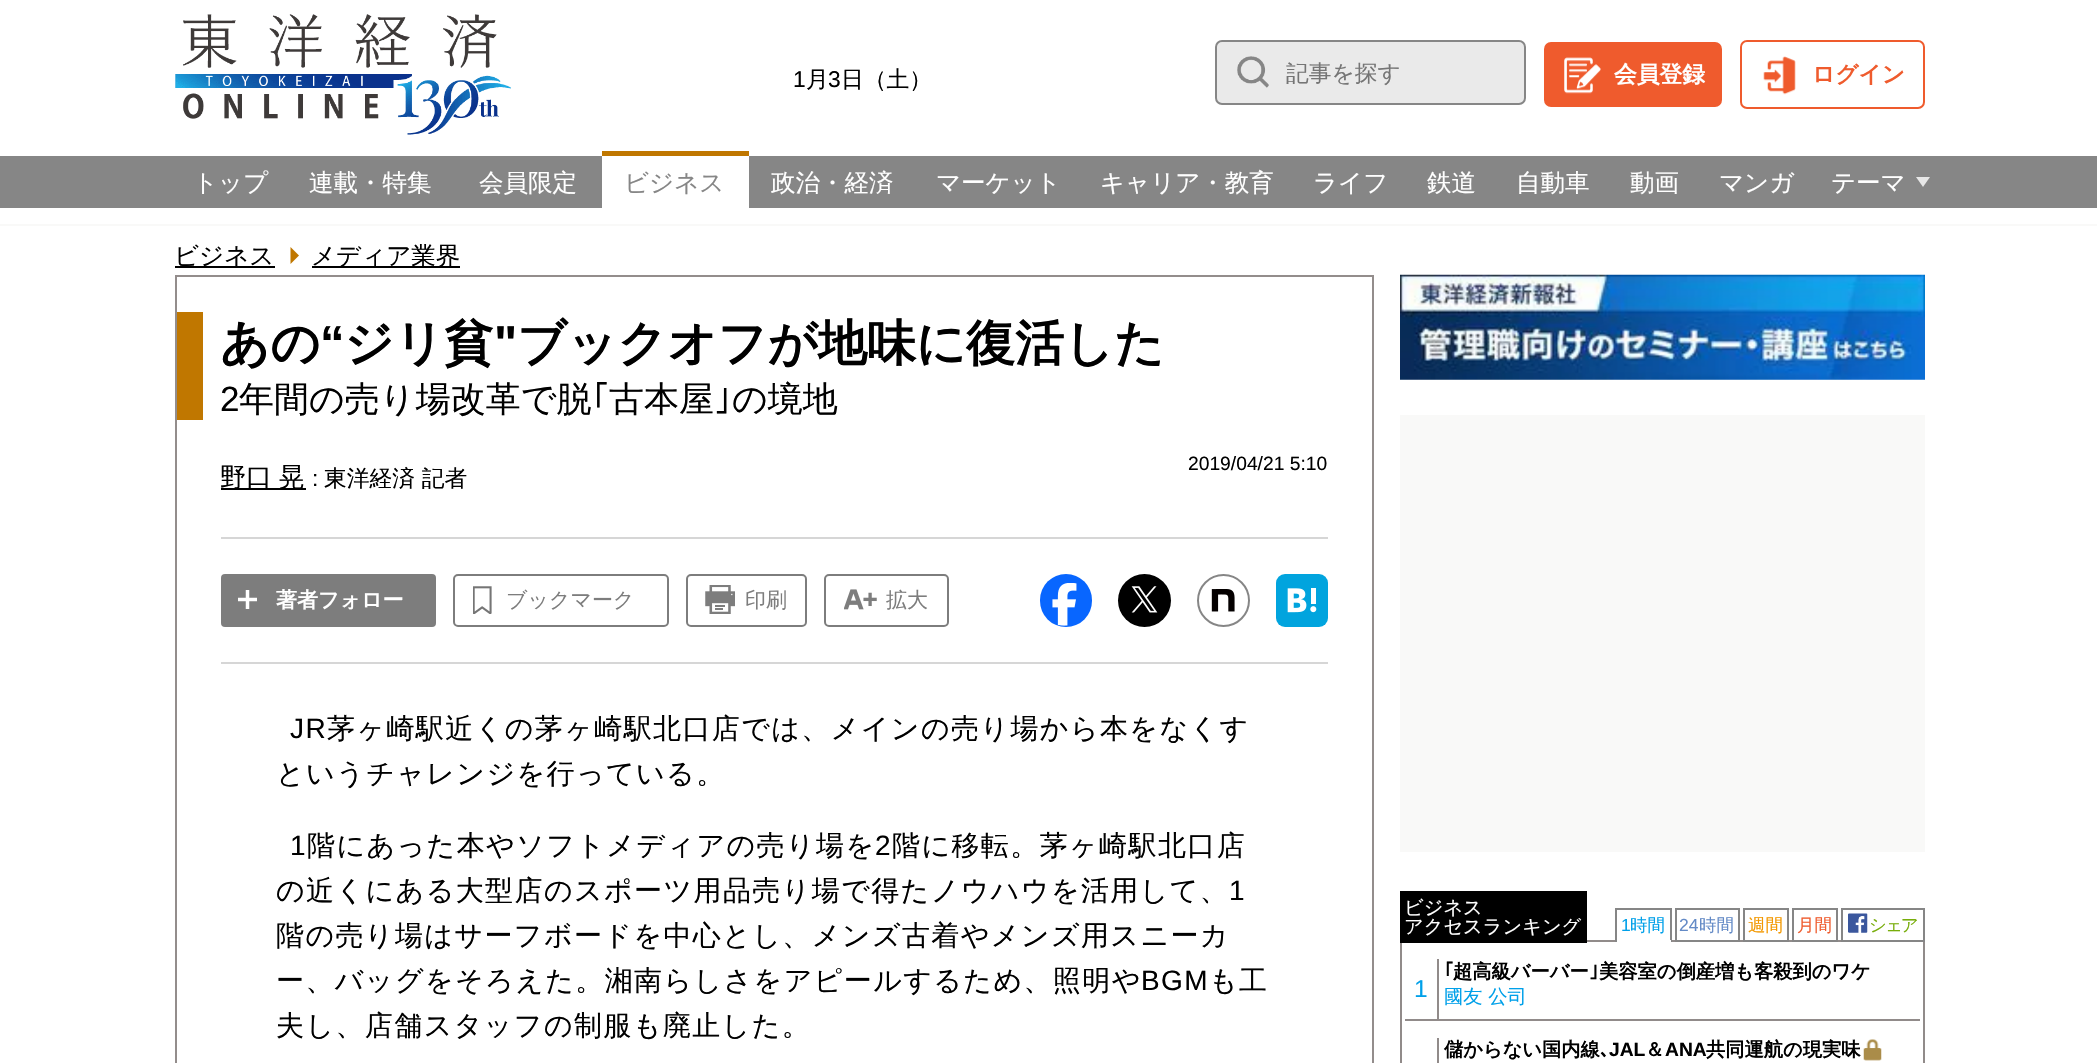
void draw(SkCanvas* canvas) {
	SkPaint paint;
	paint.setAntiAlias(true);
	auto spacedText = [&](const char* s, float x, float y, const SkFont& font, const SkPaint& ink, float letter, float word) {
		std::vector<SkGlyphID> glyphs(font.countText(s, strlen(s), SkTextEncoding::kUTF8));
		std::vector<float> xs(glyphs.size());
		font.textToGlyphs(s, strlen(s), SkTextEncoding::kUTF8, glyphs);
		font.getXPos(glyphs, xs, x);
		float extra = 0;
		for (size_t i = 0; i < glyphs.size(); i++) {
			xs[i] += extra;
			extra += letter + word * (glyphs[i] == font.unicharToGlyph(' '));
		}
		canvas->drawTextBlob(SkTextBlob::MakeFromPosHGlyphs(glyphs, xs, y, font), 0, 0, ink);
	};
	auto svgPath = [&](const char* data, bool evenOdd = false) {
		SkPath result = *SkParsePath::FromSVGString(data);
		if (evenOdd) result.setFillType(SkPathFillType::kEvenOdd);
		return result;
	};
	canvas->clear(0xffffffff);
	canvas->drawImageRect(SkImages::DeferredFromEncodedData(SkData::MakeFromFileName("img1.png")), SkRect::MakeXYWH(175, 14, 336, 121), SkSamplingOptions());
	SkFont f1(fontMgr->matchFamilyStyle("Liberation Sans", SkFontStyle::Normal()), 22.75);
	f1.setSubpixel(true);
	paint.setColor(0xff000000);
	canvas->drawString("1", 793, 87, f1, paint);
	SkFont f2(fontMgr->matchFamilyStyle("WenQuanYi Zen Hei", SkFontStyle(500, SkFontStyle::kNormal_Width, SkFontStyle::kUpright_Slant)), 22.75);
	f2.setSubpixel(true);
	canvas->drawString("月", 806, 87, f2, paint);
	canvas->drawString("3", 828, 87, f1, paint);
	canvas->drawString("日（土）", 841, 87, f2, paint);
	paint.setColor(0xffeaeaea);
	canvas->drawRoundRect(SkRect::MakeXYWH(1216, 41, 309, 63), 6, 6, paint);
	paint.setStroke(true);
	paint.setStrokeWidth(2);
	paint.setColor(0xff868686);
	canvas->drawRoundRect(SkRect::MakeXYWH(1216, 41, 309, 63), 6, 6, paint);
	canvas->drawImageRect(SkImages::DeferredFromEncodedData(SkData::MakeFromFileName("img2.png")), SkRect::MakeXYWH(1237, 56, 32, 32), SkSamplingOptions());
	paint.setStroke(false);
	paint.setColor(0xff757575);
	canvas->drawString("記事を探す", 1286, 81, f2, paint);
	paint.setColor(0xffef5b2d);
	canvas->drawRoundRect(SkRect::MakeXYWH(1544, 42, 178, 65), 7, 7, paint);
	canvas->drawImageRect(SkImages::DeferredFromEncodedData(SkData::MakeFromFileName("img3.png")), SkRect::MakeXYWH(1564, 57, 37, 37), SkSamplingOptions());
	SkFont f3(fontMgr->matchFamilyStyle("WenQuanYi Zen Hei", SkFontStyle::Bold()), 22.75);
	f3.setSubpixel(true);
	paint.setColor(0xffffffff);
	canvas->drawString("会員登録", 1614, 82, f3, paint);
	canvas->drawImageRect(SkImages::DeferredFromEncodedData(SkData::MakeFromFileName("img4.png")), SkRect::MakeXYWH(1763, 56, 33, 39), SkSamplingOptions());
	paint.setStroke(true);
	paint.setColor(0xffef5b2d);
	canvas->drawRoundRect(SkRect::MakeXYWH(1741, 41, 183, 67), 6, 6, paint);
	paint.setStroke(false);
	canvas->drawString("ログイン", 1812, 82, f3, paint);
	paint.setColor(0xff868686);
	canvas->drawRect(SkRect::MakeXYWH(0, 156, 2097, 52), paint);
	SkFont f4(fontMgr->matchFamilyStyle("WenQuanYi Zen Hei", SkFontStyle(500, SkFontStyle::kNormal_Width, SkFontStyle::kUpright_Slant)), 24.5);
	f4.setSubpixel(true);
	paint.setColor(0xffffffff);
	canvas->drawString("トップ", 193, 191, f4, paint);
	canvas->drawString("連載・特集", 309, 191, f4, paint);
	canvas->drawString("会員限定", 479, 191, f4, paint);
	canvas->drawRect(SkRect::MakeXYWH(602, 156, 147, 52), paint);
	paint.setColor(0xffc07700);
	canvas->drawRect(SkRect::MakeXYWH(602, 151, 147, 5), paint);
	paint.setColor(0xff868686);
	canvas->drawString("ビジネス", 624, 191, f4, paint);
	paint.setColor(0xffffffff);
	canvas->drawString("政治・経済", 771, 191, f4, paint);
	canvas->drawString("マーケット", 936, 191, f4, paint);
	canvas->drawString("キャリア・教育", 1100, 191, f4, paint);
	canvas->drawString("ライフ", 1313, 191, f4, paint);
	canvas->drawString("鉄道", 1427, 191, f4, paint);
	canvas->drawString("自動車", 1516, 191, f4, paint);
	canvas->drawString("動画", 1630, 191, f4, paint);
	canvas->drawString("マンガ", 1719, 191, f4, paint);
	canvas->drawString("テーマ", 1831, 191, f4, paint);
	paint.setColor(0xffe7e7e7);
	canvas->drawPath(svgPath("M1916 177H1930L1923 187Z"), paint);
	paint.setColor(0xfff9f9f8);
	canvas->drawRect(SkRect::MakeXYWH(0, 224, 2097, 2), paint);
	paint.setColor(0xff000000);
	canvas->drawRect(SkRect::MakeXYWH(175, 266, 100, 2), paint);
	canvas->drawString("ビジネス", 174, 264, f4, paint);
	paint.setColor(0xffc07700);
	canvas->drawPath(svgPath("M290.5 264V247L299 255.5Z"), paint);
	paint.setColor(0xff000000);
	canvas->drawRect(SkRect::MakeXYWH(312, 266, 148, 2), paint);
	canvas->drawString("メディア業界", 311, 264, f4, paint);
	paint.setColor(0xff938d8c);
	canvas->drawRect(SkRect::MakeXYWH(175, 275, 1199, 2), paint);
	canvas->drawRect(SkRect::MakeXYWH(1372, 275, 2, 788), paint);
	canvas->drawRect(SkRect::MakeXYWH(175, 275, 2, 788), paint);
	paint.setColor(0xffc07700);
	canvas->drawRect(SkRect::MakeXYWH(177, 312, 26, 108), paint);
	SkFont f5(fontMgr->matchFamilyStyle("WenQuanYi Zen Hei", SkFontStyle::Bold()), 49);
	f5.setSubpixel(true);
	paint.setColor(0xff000000);
	canvas->drawString("あの", 220, 360, f5, paint);
	SkFont f6(fontMgr->matchFamilyStyle("Liberation Sans", SkFontStyle::Bold()), 49);
	f6.setSubpixel(true);
	canvas->drawString("“", 320, 360, f6, paint);
	canvas->drawString("ジリ貧", 344, 360, f5, paint);
	canvas->drawString("\"", 494, 360, f6, paint);
	canvas->drawString("ブックオフが地味に復活した", 517, 360, f5, paint);
	SkFont f7(fontMgr->matchFamilyStyle("Liberation Sans", SkFontStyle::Normal()), 35);
	f7.setSubpixel(true);
	canvas->drawString("2", 220, 411, f7, paint);
	SkFont f8(fontMgr->matchFamilyStyle("WenQuanYi Zen Hei", SkFontStyle(500, SkFontStyle::kNormal_Width, SkFontStyle::kUpright_Slant)), 35);
	f8.setSubpixel(true);
	canvas->drawString("年間の売り場改革で脱", 239, 411, f8, paint);
	SkFont f9(fontMgr->matchFamilyStyle("IPAPGothic", SkFontStyle::Normal()), 35);
	f9.setSubpixel(true);
	canvas->drawString("｢", 592, 411, f9, paint);
	canvas->drawString("古本屋", 609, 411, f8, paint);
	canvas->drawString("｣", 714, 411, f9, paint);
	canvas->drawString("の境地", 732, 411, f8, paint);
	canvas->drawRect(SkRect::MakeXYWH(221, 488, 85, 2), paint);
	SkFont f10(fontMgr->matchFamilyStyle("WenQuanYi Zen Hei", SkFontStyle(500, SkFontStyle::kNormal_Width, SkFontStyle::kUpright_Slant)), 26);
	f10.setSubpixel(true);
	spacedText("野口 晃", 220, 486, f10, paint, 0, -1);
	canvas->drawString(":", 312, 486, f1, paint);
	canvas->drawString("東洋経済 記者", 324, 486, f2, paint);
	SkFont f11(fontMgr->matchFamilyStyle("Liberation Sans", SkFontStyle::Normal()), 19.25);
	f11.setSubpixel(true);
	canvas->drawString("2019/04/21 5:10", 1188, 470, f11, paint);
	paint.setColor(0xffd6d6d6);
	canvas->drawRect(SkRect::MakeXYWH(221, 537, 1107, 2), paint);
	canvas->drawRect(SkRect::MakeXYWH(221, 662, 1107, 2), paint);
	paint.setColor(0xff7d7d7d);
	canvas->drawRoundRect(SkRect::MakeXYWH(221, 574, 215, 53), 4, 4, paint);
	canvas->save();
	canvas->clipRect(SkRect::MakeXYWH(238, 590, 19, 19));
	paint.setStroke(true);
	paint.setStrokeWidth(3.5);
	paint.setColor(0xffffffff);
	canvas->drawPath(svgPath("M238 599.5H257.5"), paint);
	canvas->restore();
	canvas->drawPath(svgPath("M247.5 590V609"), paint);
	SkFont f12(fontMgr->matchFamilyStyle("WenQuanYi Zen Hei", SkFontStyle::Bold()), 21);
	f12.setSubpixel(true);
	paint.setStroke(false);
	canvas->drawString("著者フォロー", 276, 607, f12, paint);
	canvas->drawImageRect(SkImages::DeferredFromEncodedData(SkData::MakeFromFileName("img5.png")), SkRect::MakeXYWH(473, 586, 19, 28), SkSamplingOptions());
	paint.setStroke(true);
	paint.setStrokeWidth(2);
	paint.setColor(0xff7d7d7d);
	canvas->drawRoundRect(SkRect::MakeXYWH(454, 575, 214, 51), 4, 4, paint);
	SkFont f13(fontMgr->matchFamilyStyle("WenQuanYi Zen Hei", SkFontStyle(500, SkFontStyle::kNormal_Width, SkFontStyle::kUpright_Slant)), 21);
	f13.setSubpixel(true);
	paint.setStroke(false);
	canvas->drawString("ブックマーク", 506, 607, f13, paint);
	canvas->drawImageRect(SkImages::DeferredFromEncodedData(SkData::MakeFromFileName("img6.png")), SkRect::MakeXYWH(705, 585, 30, 29), SkSamplingOptions());
	paint.setStroke(true);
	canvas->drawRoundRect(SkRect::MakeXYWH(687, 575, 119, 51), 4, 4, paint);
	paint.setStroke(false);
	canvas->drawString("印刷", 745, 607, f13, paint);
	canvas->drawImageRect(SkImages::DeferredFromEncodedData(SkData::MakeFromFileName("img7.png")), SkRect::MakeXYWH(844, 589, 33, 21), SkSamplingOptions());
	paint.setStroke(true);
	canvas->drawRoundRect(SkRect::MakeXYWH(825, 575, 123, 51), 4, 4, paint);
	paint.setStroke(false);
	canvas->drawString("拡大", 886, 607, f13, paint);
	paint.setColor(0xff0866ff);
	canvas->drawRoundRect(SkRect::MakeXYWH(1040, 574, 52, 53), 26, 26, paint);
	canvas->drawImageRect(SkImages::DeferredFromEncodedData(SkData::MakeFromFileName("img8.png")), SkRect::MakeXYWH(1052, 583, 25, 43), SkSamplingOptions());
	paint.setColor(0xff000000);
	canvas->drawCircle(1144.5, 600.5, 26.5, paint);
	canvas->drawImageRect(SkImages::DeferredFromEncodedData(SkData::MakeFromFileName("img9.png")), SkRect::MakeXYWH(1131, 586, 27, 27), SkSamplingOptions());
	canvas->drawImageRect(SkImages::DeferredFromEncodedData(SkData::MakeFromFileName("img10.png")), SkRect::MakeXYWH(1211, 589, 24, 23), SkSamplingOptions());
	paint.setStroke(true);
	paint.setColor(0xff868686);
	canvas->drawCircle(1223.5, 600.5, 25.5, paint);
	paint.setStroke(false);
	paint.setColor(0xff01a4de);
	canvas->drawRoundRect(SkRect::MakeXYWH(1276, 574, 52, 53), 9, 9, paint);
	canvas->drawImageRect(SkImages::DeferredFromEncodedData(SkData::MakeFromFileName("img11.png")), SkRect::MakeXYWH(1287, 588, 30, 25), SkSamplingOptions());
	SkFont f14(fontMgr->matchFamilyStyle("Liberation Sans", SkFontStyle::Normal()), 28);
	f14.setSubpixel(true);
	paint.setColor(0xff000000);
	spacedText("JR", 290, 738, f14, paint, 1.4, 0);
	SkFont f15(fontMgr->matchFamilyStyle("WenQuanYi Zen Hei", SkFontStyle(500, SkFontStyle::kNormal_Width, SkFontStyle::kUpright_Slant)), 28);
	f15.setSubpixel(true);
	spacedText("茅ヶ崎駅近くの茅ヶ崎駅北口店では、メインの売り場から本をなくす", 327, 738, f15, paint, 1.4, 0);
	spacedText("というチャレンジを行っている。", 276, 783, f15, paint, 1.4, 0);
	spacedText("1", 290, 855, f14, paint, 1.4, 0);
	spacedText("階にあった本やソフトメディアの売り場を", 307, 855, f15, paint, 1.4, 0);
	spacedText("2", 875, 855, f14, paint, 1.4, 0);
	spacedText("階に移転。茅ヶ崎駅北口店", 892, 855, f15, paint, 1.4, 0);
	spacedText("の近くにある大型店のスポーツ用品売り場で得たノウハウを活用して、", 276, 900, f15, paint, 1.4, 0);
	spacedText("1", 1229, 900, f14, paint, 1.4, 0);
	spacedText("階の売り場はサーフボードを中心とし、メンズ古着やメンズ用スニーカ", 276, 945, f15, paint, 1.4, 0);
	spacedText("ー、バッグをそろえた。湘南らしさをアピールするため、照明や", 276, 990, f15, paint, 1.4, 0);
	spacedText("BGM", 1141, 990, f14, paint, 1.4, 0);
	spacedText("も工", 1209, 990, f15, paint, 1.4, 0);
	spacedText("夫し、店舗スタッフの制服も廃止した。", 276, 1035, f15, paint, 1.4, 0);
	canvas->drawImageRect(SkImages::DeferredFromEncodedData(SkData::MakeFromFileName("img12.png")), SkRect::MakeXYWH(1400, 274, 525, 106), SkSamplingOptions());
	paint.setColor(0xfff9f9f8);
	canvas->drawRect(SkRect::MakeXYWH(1400, 415, 525, 437), paint);
	paint.setStroke(true);
	paint.setColor(0xff918b8a);
	canvas->drawRect(SkRect::MakeXYWH(1401, 941, 523, 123), paint);
	paint.setStroke(false);
	paint.setColor(0xff000000);
	canvas->drawRect(SkRect::MakeXYWH(1400, 891, 187, 52), paint);
	SkFont f16(fontMgr->matchFamilyStyle("WenQuanYi Zen Hei", SkFontStyle(500, SkFontStyle::kNormal_Width, SkFontStyle::kUpright_Slant)), 19.25);
	f16.setSubpixel(true);
	paint.setColor(0xffffffff);
	canvas->drawString("ビジネス", 1404, 914, f16, paint);
	canvas->drawString("アクセスランキング", 1404, 933, f16, paint);
	paint.setColor(0xff868686);
	canvas->drawRect(SkRect::MakeXYWH(1615, 908, 56, 2), paint);
	canvas->drawRect(SkRect::MakeXYWH(1670, 908, 2, 34), paint);
	paint.setColor(0xffffffff);
	canvas->drawRect(SkRect::MakeXYWH(1615, 940, 56, 2), paint);
	paint.setColor(0xff868686);
	canvas->drawRect(SkRect::MakeXYWH(1615, 908, 2, 34), paint);
	SkFont f17(fontMgr->matchFamilyStyle("Liberation Sans", SkFontStyle::Normal()), 17.5);
	f17.setSubpixel(true);
	paint.setColor(0xff00a0e9);
	canvas->drawString("1", 1621, 931, f17, paint);
	SkFont f18(fontMgr->matchFamilyStyle("WenQuanYi Zen Hei", SkFontStyle(500, SkFontStyle::kNormal_Width, SkFontStyle::kUpright_Slant)), 17.5);
	f18.setSubpixel(true);
	canvas->drawString("時間", 1630, 931, f18, paint);
	paint.setStroke(true);
	paint.setColor(0xff868686);
	canvas->drawRect(SkRect::MakeXYWH(1676, 909, 63, 32), paint);
	paint.setStroke(false);
	paint.setColor(0xff638ac6);
	canvas->drawString("24", 1679, 931, f17, paint);
	canvas->drawString("時間", 1699, 931, f18, paint);
	paint.setStroke(true);
	paint.setColor(0xff868686);
	canvas->drawRect(SkRect::MakeXYWH(1744, 909, 44, 32), paint);
	paint.setStroke(false);
	paint.setColor(0xfff39800);
	canvas->drawString("週間", 1748, 931, f18, paint);
	paint.setStroke(true);
	paint.setColor(0xff868686);
	canvas->drawRect(SkRect::MakeXYWH(1793, 909, 44, 32), paint);
	paint.setStroke(false);
	paint.setColor(0xffef5b2d);
	canvas->drawString("月間", 1797, 931, f18, paint);
	canvas->drawImageRect(SkImages::DeferredFromEncodedData(SkData::MakeFromFileName("img13.png")), SkRect::MakeXYWH(1848, 913, 20, 20), SkSamplingOptions());
	paint.setStroke(true);
	paint.setColor(0xff868686);
	canvas->drawRect(SkRect::MakeXYWH(1842, 909, 82, 32), paint);
	paint.setStroke(false);
	paint.setColor(0xff78ad0b);
	spacedText("シェア", 1869, 931, f18, paint, -2, 0);
	paint.setColor(0xff918b8a);
	canvas->drawRect(SkRect::MakeXYWH(1405, 1019, 515, 2), paint);
	SkFont f19(fontMgr->matchFamilyStyle("Liberation Sans", SkFontStyle::Normal()), 24.5);
	f19.setSubpixel(true);
	paint.setColor(0xff00a0e9);
	canvas->drawString("1", 1414, 997, f19, paint);
	paint.setColor(0xff918b8a);
	canvas->drawRect(SkRect::MakeXYWH(1437, 959, 2, 60), paint);
	SkFont f20(fontMgr->matchFamilyStyle("IPAPGothic", SkFontStyle::Bold()), 19.25);
	f20.setSubpixel(true);
	paint.setColor(0xff000000);
	canvas->drawString("｢", 1444, 978, f20, paint);
	SkFont f21(fontMgr->matchFamilyStyle("WenQuanYi Zen Hei", SkFontStyle::Bold()), 19.25);
	f21.setSubpixel(true);
	canvas->drawString("超高級バーバー", 1453, 978, f21, paint);
	canvas->drawString("｣", 1589, 978, f20, paint);
	canvas->drawString("美容室の倒産増も客殺到のワケ", 1599, 978, f21, paint);
	paint.setColor(0xff00a0e9);
	canvas->drawString("國友 公司", 1444, 1003, f16, paint);
	paint.setColor(0xff918b8a);
	canvas->drawRect(SkRect::MakeXYWH(1437, 1038, 2, 25), paint);
	paint.setColor(0xff000000);
	canvas->drawString("儲からない国内線", 1444, 1056, f21, paint);
	canvas->drawString("､", 1600, 1056, f20, paint);
	SkFont f22(fontMgr->matchFamilyStyle("Liberation Sans", SkFontStyle::Bold()), 19.25);
	f22.setSubpixel(true);
	canvas->drawString("JAL", 1609, 1056, f22, paint);
	canvas->drawString("＆", 1645, 1056, f21, paint);
	canvas->drawString("ANA", 1665, 1056, f22, paint);
	canvas->drawString("共同運航の現実味", 1706, 1056, f21, paint);
	canvas->drawImageRect(SkImages::DeferredFromEncodedData(SkData::MakeFromFileName("img14.png")), SkRect::MakeXYWH(1863, 1039, 19, 22), SkSamplingOptions());
}
